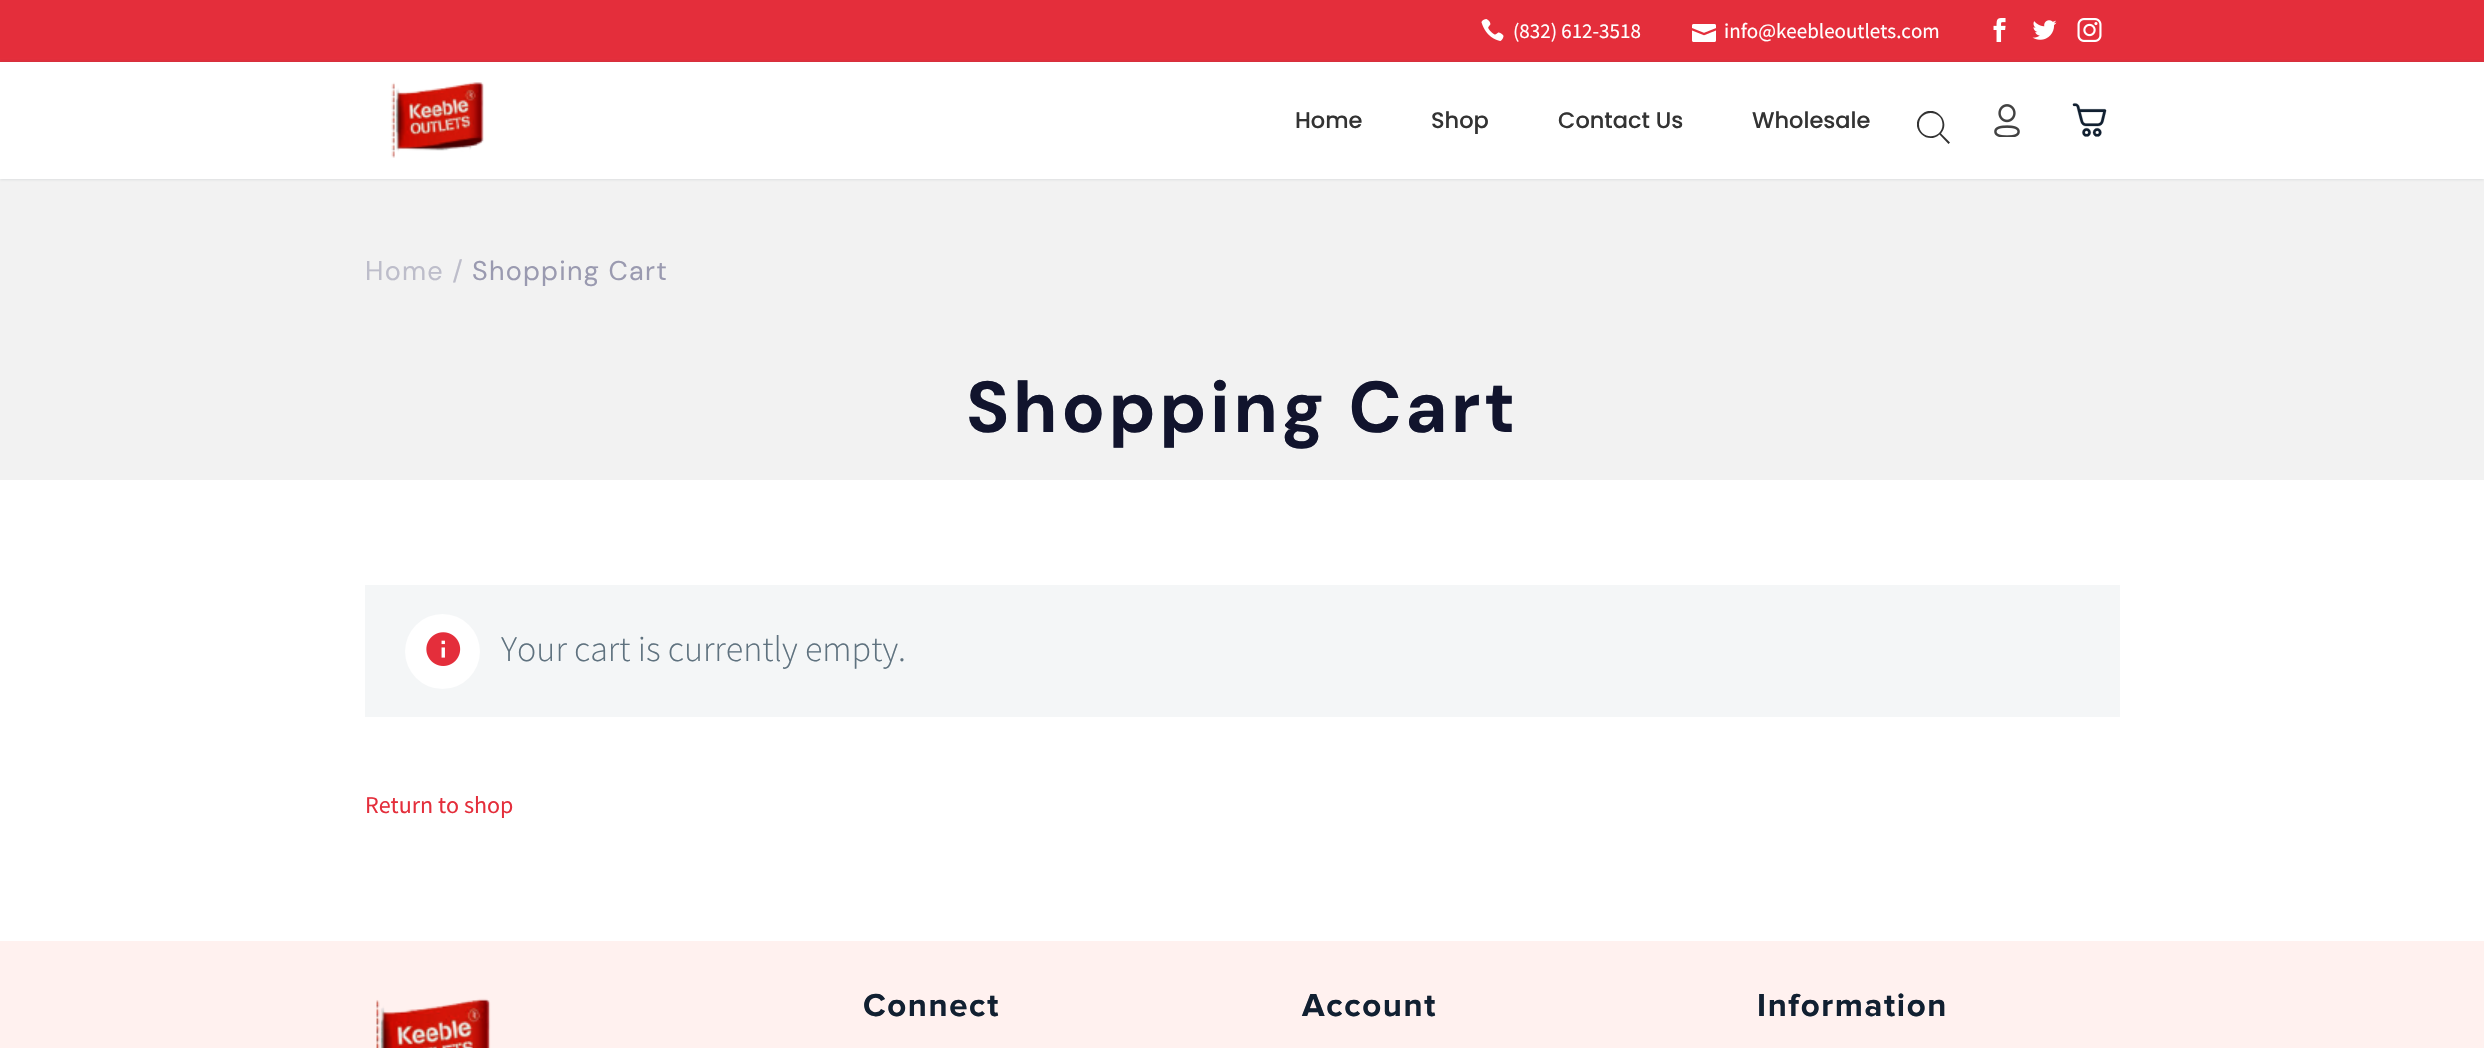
void draw(SkCanvas* canvas) {
	SkPaint paint;
	paint.setAntiAlias(true);
	auto spacedText = [&](const char* s, float x, float y, const SkFont& font, const SkPaint& ink, float letter, float word) {
		std::vector<SkGlyphID> glyphs(font.countText(s, strlen(s), SkTextEncoding::kUTF8));
		std::vector<float> xs(glyphs.size());
		font.textToGlyphs(s, strlen(s), SkTextEncoding::kUTF8, glyphs);
		font.getXPos(glyphs, xs, x);
		float extra = 0;
		for (size_t i = 0; i < glyphs.size(); i++) {
			xs[i] += extra;
			extra += letter + word * (glyphs[i] == font.unicharToGlyph(' '));
		}
		canvas->drawTextBlob(SkTextBlob::MakeFromPosHGlyphs(glyphs, xs, y, font), 0, 0, ink);
	};
	auto svgPath = [&](const char* data, bool evenOdd = false) {
		SkPath result = *SkParsePath::FromSVGString(data);
		if (evenOdd) result.setFillType(SkPathFillType::kEvenOdd);
		return result;
	};
	canvas->clear(0xffe42e3b);
	canvas->drawImageRect(SkImages::DeferredFromEncodedData(SkData::MakeFromFileName("img1.png")), SkRect::MakeXYWH(1481, 19, 23, 22), SkSamplingOptions());
	SkFont f1(fontMgr->matchFamilyStyle("Source Sans Pro", SkFontStyle::Normal()), 21);
	f1.setSubpixel(true);
	paint.setColor(0xffffffff);
	canvas->drawString("(832) 612-3518", 1513, 38, f1, paint);
	canvas->drawImageRect(SkImages::DeferredFromEncodedData(SkData::MakeFromFileName("img2.png")), SkRect::MakeXYWH(1692, 24, 24, 18), SkSamplingOptions());
	canvas->drawString("info@keebleoutlets.com", 1724, 38, f1, paint);
	canvas->drawImageRect(SkImages::DeferredFromEncodedData(SkData::MakeFromFileName("img3.png")), SkRect::MakeXYWH(1993, 18, 13, 24), SkSamplingOptions());
	canvas->drawImageRect(SkImages::DeferredFromEncodedData(SkData::MakeFromFileName("img4.png")), SkRect::MakeXYWH(2032, 20, 25, 20), SkSamplingOptions());
	canvas->drawImageRect(SkImages::DeferredFromEncodedData(SkData::MakeFromFileName("img5.png")), SkRect::MakeXYWH(2077, 18, 25, 24), SkSamplingOptions());
	paint.setColor(0xfff2f2f2);
	canvas->drawRect(SkRect::MakeXYWH(0, 179, 2484, 301), paint);
	paint.setColor(0x33384554);
	paint.setMaskFilter(SkMaskFilter::MakeBlur(kNormal_SkBlurStyle, 1.5));
	canvas->drawRect(SkRect::MakeXYWH(0, 62, 2484, 117), paint);
	paint.setMaskFilter(nullptr);
	paint.setColor(0xffffffff);
	canvas->drawRect(SkRect::MakeXYWH(0, 62, 2484, 117), paint);
	canvas->drawImageRect(SkImages::DeferredFromEncodedData(SkData::MakeFromFileName("img6.png")), SkRect::MakeXYWH(391, 82, 93, 76), SkSamplingOptions());
	SkFont f2(fontMgr->matchFamilyStyle("Poppins", SkFontStyle(500, SkFontStyle::kNormal_Width, SkFontStyle::kUpright_Slant)), 22.5);
	f2.setSubpixel(true);
	paint.setColor(0xff333333);
	canvas->drawString("Home", 1295, 128, f2, paint);
	canvas->drawString("Shop", 1431, 128, f2, paint);
	canvas->drawString("Contact Us", 1558, 128, f2, paint);
	canvas->drawString("Wholesale", 1752, 128, f2, paint);
	canvas->save();
	canvas->clipRect(SkRect::MakeXYWH(1917, 111, 33, 33));
	canvas->drawPath(svgPath("M1950 142.5L1941 133.5C1952 120.5 1933.5 102.5 1921 115C1908.5 127.5 1927 146 1939.5 134.5L1948.5 144ZM1919 124.5C1919 109 1942.5 109 1942.5 124.5C1942.5 140 1919 140 1919 124.5Z"), paint);
	canvas->restore();
	canvas->drawImageRect(SkImages::DeferredFromEncodedData(SkData::MakeFromFileName("img7.png")), SkRect::MakeXYWH(1994, 104, 26, 33), SkSamplingOptions());
	canvas->drawImageRect(SkImages::DeferredFromEncodedData(SkData::MakeFromFileName("img8.png")), SkRect::MakeXYWH(2072, 102, 35, 35), SkSamplingOptions());
	paint.setColor(0xffffffff);
	canvas->drawRect(SkRect::MakeXYWH(0, 480, 2484, 461), paint);
	SkFont f3(fontMgr->matchFamilyStyle("DM Sans", SkFontStyle::Normal()), 27);
	f3.setSubpixel(true);
	paint.setColor(0xffbdbdca);
	spacedText("Home /", 365, 280, f3, paint, 1.25, 0);
	paint.setColor(0xff9a9ab0);
	spacedText("Shopping Cart", 472, 280, f3, paint, 1.25, 0);
	SkFont f4(fontMgr->matchFamilyStyle("DM Sans", SkFontStyle::Bold()), 72);
	f4.setSubpixel(true);
	paint.setColor(0xff11142d);
	spacedText("Shopping Cart", 966, 432, f4, paint, 3.6, 0);
	paint.setColor(0xfff4f6f7);
	canvas->drawRect(SkRect::MakeXYWH(365, 585, 1755, 132), paint);
	paint.setColor(0xffffffff);
	canvas->drawCircle(442.5, 651.5, 37.5, paint);
	canvas->drawImageRect(SkImages::DeferredFromEncodedData(SkData::MakeFromFileName("img9.png")), SkRect::MakeXYWH(426, 632, 35, 34), SkSamplingOptions());
	SkFont f5(fontMgr->matchFamilyStyle("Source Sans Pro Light", SkFontStyle(300, SkFontStyle::kNormal_Width, SkFontStyle::kUpright_Slant)), 36);
	f5.setSubpixel(true);
	paint.setColor(0xff5f727f);
	canvas->drawString("Your cart is currently empty.", 501, 661, f5, paint);
	SkFont f6(fontMgr->matchFamilyStyle("Source Sans Pro", SkFontStyle::Normal()), 24);
	f6.setSubpixel(true);
	paint.setColor(0xffe42e3b);
	canvas->drawString("Return to shop", 365, 813, f6, paint);
	paint.setColor(0xfffff1ef);
	canvas->drawRect(SkRect::MakeXYWH(0, 941, 2484, 107), paint);
	canvas->drawImageRect(SkImages::DeferredFromEncodedData(SkData::MakeFromFileName("img10.png")), SkRect::MakeXYWH(376, 998, 115, 50), SkSamplingOptions());
	SkFont f7(fontMgr->matchFamilyStyle("Proxima Nova", SkFontStyle::Bold()), 33);
	f7.setSubpixel(true);
	paint.setColor(0xff112031);
	spacedText("Connect", 863, 1016, f7, paint, 1.6, 0);
	spacedText("Account", 1302, 1016, f7, paint, 1.6, 0);
	spacedText("Information", 1757, 1016, f7, paint, 1.6, 0);
}
